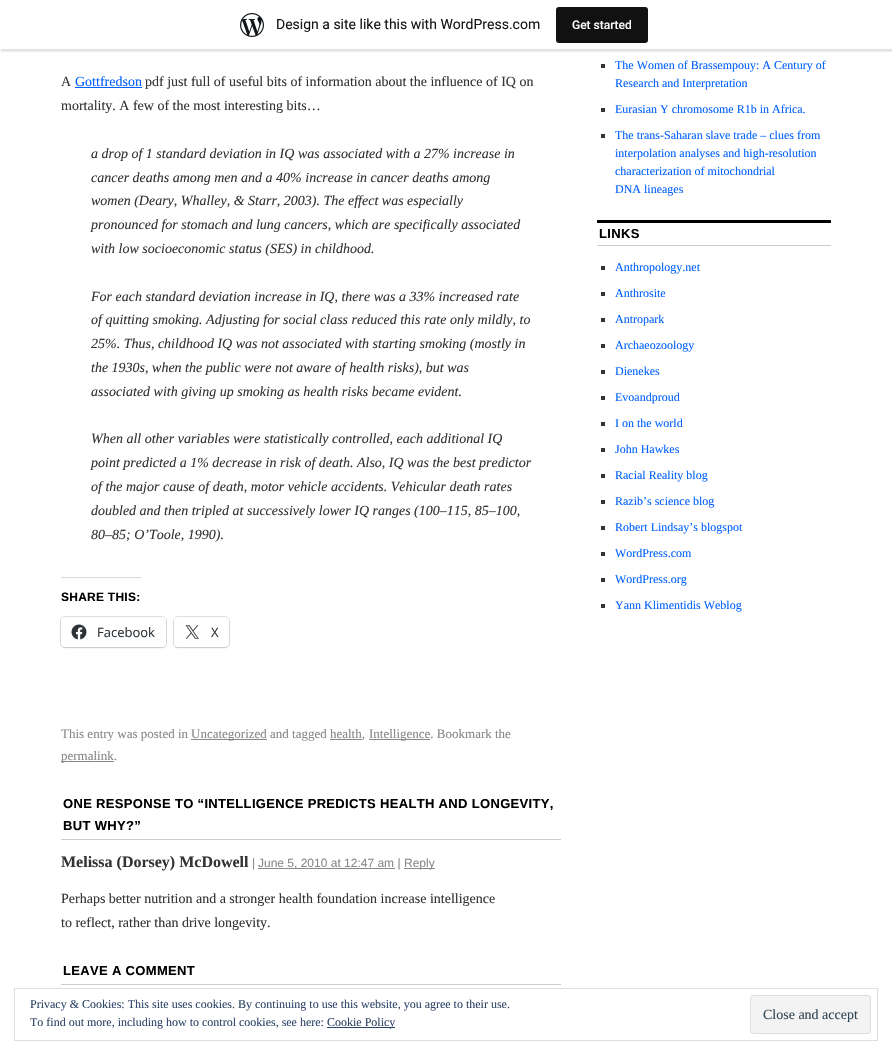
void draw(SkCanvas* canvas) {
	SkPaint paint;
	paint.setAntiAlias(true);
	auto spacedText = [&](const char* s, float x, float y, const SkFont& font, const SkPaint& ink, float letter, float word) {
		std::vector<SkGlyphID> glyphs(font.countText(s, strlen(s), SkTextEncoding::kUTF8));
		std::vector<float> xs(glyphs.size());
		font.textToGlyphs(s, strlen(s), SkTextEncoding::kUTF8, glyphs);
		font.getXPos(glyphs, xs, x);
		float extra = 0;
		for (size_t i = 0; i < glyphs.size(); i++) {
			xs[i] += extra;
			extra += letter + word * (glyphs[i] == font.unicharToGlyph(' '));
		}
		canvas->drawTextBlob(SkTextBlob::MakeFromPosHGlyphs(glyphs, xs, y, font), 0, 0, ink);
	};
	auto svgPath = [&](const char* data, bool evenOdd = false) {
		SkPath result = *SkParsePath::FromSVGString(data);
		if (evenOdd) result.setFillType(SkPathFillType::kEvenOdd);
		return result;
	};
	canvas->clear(0xffffffff);
	paint.setColor(0x0d000000);
	paint.setMaskFilter(SkMaskFilter::MakeBlur(kNormal_SkBlurStyle, 1));
	canvas->drawRect(SkRect::MakeXYWH(0, 1, 892, 49), paint);
	paint.setMaskFilter(nullptr);
	paint.setColor(0x14000000);
	canvas->drawPath(svgPath("M1 49V52H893V3H892V49Z"), paint);
	paint.setColor(0xffffffff);
	canvas->drawRect(SkRect::MakeXYWH(0, 0, 892, 49), paint);
	canvas->drawImageRect(SkImages::DeferredFromEncodedData(SkData::MakeFromFileName("img1.png")), SkRect::MakeXYWH(240, 13, 24, 24), SkSamplingOptions());
	SkFont f1(fontMgr->matchFamilyStyle("Roboto", SkFontStyle::Normal()), 14);
	f1.setSubpixel(true);
	paint.setColor(0xff171717);
	canvas->drawString("Design a site like this with WordPress.com", 276, 29, f1, paint);
	paint.setColor(0xff111111);
	canvas->drawRoundRect(SkRect::MakeXYWH(556, 7, 92, 36), 3, 3, paint);
	SkFont f2(fontMgr->matchFamilyStyle("Roboto", SkFontStyle(500, SkFontStyle::kNormal_Width, SkFontStyle::kUpright_Slant)), 12);
	f2.setSubpixel(true);
	paint.setColor(0xfff6f7f7);
	canvas->drawString("Get started", 572, 29, f2, paint);
	SkFont f3(fontMgr->matchFamilyStyle("Liberation Serif", SkFontStyle::Normal()), 14);
	f3.setSubpixel(true);
	paint.setColor(0xff333333);
	canvas->drawString("A", 61, 86, f3, paint);
	paint.setColor(0xff0060ff);
	canvas->drawString("Gottfredson", 75, 86, f3, paint);
	canvas->drawRect(SkRect::MakeXYWH(75, 87, 67, 1), paint);
	paint.setColor(0xff333333);
	canvas->drawString("pdf just full of useful bits of information about the influence of IQ on", 145, 86, f3, paint);
	canvas->drawString("mortality. A few of the most interesting bits…", 61, 110, f3, paint);
	SkFont f4(fontMgr->matchFamilyStyle("Liberation Serif", SkFontStyle::Italic()), 14);
	f4.setSubpixel(true);
	canvas->drawString("a drop of 1 standard deviation in IQ was associated with a 27% increase in", 91, 158, f4, paint);
	canvas->drawString("cancer deaths among men and a 40% increase in cancer deaths among", 91, 182, f4, paint);
	canvas->drawString("women (Deary, Whalley, & Starr, 2003). The effect was especially", 91, 205, f4, paint);
	canvas->drawString("pronounced for stomach and lung cancers, which are specifically associated", 91, 229, f4, paint);
	canvas->drawString("with low socioeconomic status (SES) in childhood.", 91, 253, f4, paint);
	canvas->drawString("For each standard deviation increase in IQ, there was a 33% increased rate", 91, 301, f4, paint);
	canvas->drawString("of quitting smoking. Adjusting for social class reduced this rate only mildly, to", 91, 324, f4, paint);
	canvas->drawString("25%. Thus, childhood IQ was not associated with starting smoking (mostly in", 91, 348, f4, paint);
	canvas->drawString("the 1930s, when the public were not aware of health risks), but was", 91, 372, f4, paint);
	canvas->drawString("associated with giving up smoking as health risks became evident.", 91, 396, f4, paint);
	canvas->drawString("When all other variables were statistically controlled, each additional IQ", 91, 443, f4, paint);
	canvas->drawString("point predicted a 1% decrease in risk of death. Also, IQ was the best predictor", 91, 467, f4, paint);
	canvas->drawString("of the major cause of death, motor vehicle accidents. Vehicular death rates", 91, 491, f4, paint);
	canvas->drawString("doubled and then tripled at successively lower IQ ranges (100–115, 85–100,", 91, 515, f4, paint);
	canvas->drawString("80–85; O’Toole, 1990).", 91, 539, f4, paint);
	paint.setColor(0xffdcdcde);
	canvas->drawRect(SkRect::MakeXYWH(61, 577, 80, 1), paint);
	SkFont f5(fontMgr->matchFamilyStyle("Liberation Sans", SkFontStyle::Bold()), 12);
	f5.setSubpixel(true);
	paint.setColor(0xff000000);
	spacedText("SHARE THIS:", 61, 601, f5, paint, 0.25, 0);
	paint.setStroke(true);
	paint.setStrokeWidth(1);
	paint.setColor(0xffe0e0e0);
	canvas->drawRoundRect(SkRect::MakeXYWH(60.5, 616.5, 106, 31), 4.5, 4.5, paint);
	paint.setStroke(false);
	paint.setColor(0x1f000000);
	paint.setMaskFilter(SkMaskFilter::MakeBlur(kNormal_SkBlurStyle, 1));
	canvas->drawRoundRect(SkRect::MakeXYWH(61, 618, 105, 30), 4, 4, paint);
	paint.setMaskFilter(nullptr);
	paint.setColor(0xffffffff);
	canvas->drawRoundRect(SkRect::MakeXYWH(61, 617, 105, 30), 4, 4, paint);
	canvas->drawImageRect(SkImages::DeferredFromEncodedData(SkData::MakeFromFileName("img2.png")), SkRect::MakeXYWH(71, 624, 16, 16), SkSamplingOptions());
	SkFont f6(fontMgr->matchFamilyStyle("Open Sans", SkFontStyle::Normal()), 13);
	f6.setSubpixel(true);
	paint.setColor(0xff2c3338);
	canvas->drawString("Facebook", 97, 637, f6, paint);
	paint.setStroke(true);
	paint.setColor(0xffe0e0e0);
	canvas->drawRoundRect(SkRect::MakeXYWH(173.5, 616.5, 56, 31), 4.5, 4.5, paint);
	paint.setStroke(false);
	paint.setColor(0x1f000000);
	paint.setMaskFilter(SkMaskFilter::MakeBlur(kNormal_SkBlurStyle, 1));
	canvas->drawRoundRect(SkRect::MakeXYWH(174, 618, 55, 30), 4, 4, paint);
	paint.setMaskFilter(nullptr);
	paint.setColor(0xffffffff);
	canvas->drawRoundRect(SkRect::MakeXYWH(174, 617, 55, 30), 4, 4, paint);
	canvas->drawImageRect(SkImages::DeferredFromEncodedData(SkData::MakeFromFileName("img3.png")), SkRect::MakeXYWH(185, 625, 14, 14), SkSamplingOptions());
	paint.setColor(0xff2c3338);
	canvas->drawString("X", 211, 637, f6, paint);
	SkFont f7(fontMgr->matchFamilyStyle("Liberation Serif", SkFontStyle::Normal()), 13);
	f7.setSubpixel(true);
	paint.setColor(0xff888888);
	canvas->drawString("This entry was posted in", 61, 738, f7, paint);
	canvas->drawRect(SkRect::MakeXYWH(191, 739, 76, 1), paint);
	canvas->drawString("Uncategorized and tagged health,", 191, 738, f7, paint);
	canvas->drawRect(SkRect::MakeXYWH(369, 739, 61, 1), paint);
	canvas->drawString("Intelligence. Bookmark the", 369, 738, f7, paint);
	canvas->drawRect(SkRect::MakeXYWH(330, 739, 32, 1), paint);
	canvas->drawRect(SkRect::MakeXYWH(61, 761, 53, 1), paint);
	canvas->drawString("permalink.", 61, 760, f7, paint);
	paint.setColor(0xffcccccc);
	canvas->drawRect(SkRect::MakeXYWH(61, 839, 500, 1), paint);
	SkFont f8(fontMgr->matchFamilyStyle("Liberation Sans", SkFontStyle::Bold()), 13);
	f8.setSubpixel(true);
	paint.setColor(0xff000000);
	spacedText("ONE RESPONSE TO “INTELLIGENCE PREDICTS HEALTH AND LONGEVITY,", 63, 808, f8, paint, 0.33, 0);
	spacedText("BUT WHY?”", 63, 830, f8, paint, 0.33, 0);
	SkFont f9(fontMgr->matchFamilyStyle("Liberation Serif", SkFontStyle::Bold()), 16);
	f9.setSubpixel(true);
	paint.setColor(0xff333333);
	canvas->drawString("Melissa (Dorsey) McDowell", 61, 867, f9, paint);
	SkFont f10(fontMgr->matchFamilyStyle("Liberation Sans", SkFontStyle::Normal()), 12);
	f10.setSubpixel(true);
	paint.setColor(0xff888888);
	canvas->drawString("|", 252, 867, f10, paint);
	canvas->drawRect(SkRect::MakeXYWH(258, 868, 137, 1), paint);
	canvas->drawString("June 5, 2010 at 12:47 am |", 258, 867, f10, paint);
	canvas->drawRect(SkRect::MakeXYWH(404, 868, 31, 1), paint);
	canvas->drawString("Reply", 404, 867, f10, paint);
	paint.setColor(0xff333333);
	canvas->drawString("Perhaps better nutrition and a stronger health foundation increase intelligence", 61, 903, f3, paint);
	canvas->drawString("to reflect, rather than drive longevity.", 61, 927, f3, paint);
	paint.setColor(0xffcccccc);
	canvas->drawRect(SkRect::MakeXYWH(61, 984, 500, 1), paint);
	paint.setColor(0xff000000);
	spacedText("LEAVE A COMMENT", 63, 975, f8, paint, 0.33, 0);
	paint.setColor(0xff333333);
	canvas->drawRect(SkRect::MakeXYWH(601, 64, 4, 4), paint);
	SkFont f11(fontMgr->matchFamilyStyle("Liberation Serif", SkFontStyle::Normal()), 12);
	f11.setSubpixel(true);
	paint.setColor(0xff0060ff);
	canvas->drawString("The Women of Brassempouy: A Century of", 615, 69, f11, paint);
	canvas->drawString("Research and Interpretation", 615, 87, f11, paint);
	paint.setColor(0xff333333);
	canvas->drawRect(SkRect::MakeXYWH(601, 108, 4, 4), paint);
	paint.setColor(0xff0060ff);
	canvas->drawString("Eurasian Y chromosome R1b in Africa.", 615, 113, f11, paint);
	paint.setColor(0xff333333);
	canvas->drawRect(SkRect::MakeXYWH(601, 134, 4, 4), paint);
	paint.setColor(0xff0060ff);
	canvas->drawString("The trans-Saharan slave trade – clues from", 615, 139, f11, paint);
	canvas->drawString("interpolation analyses and high-resolution", 615, 157, f11, paint);
	canvas->drawString("characterization of mitochondrial", 615, 175, f11, paint);
	canvas->drawString("DNA lineages", 615, 193, f11, paint);
	paint.setColor(0xff000000);
	canvas->drawRect(SkRect::MakeXYWH(597, 220, 234, 3), paint);
	paint.setColor(0xffcccccc);
	canvas->drawRect(SkRect::MakeXYWH(597, 245, 234, 1), paint);
	paint.setColor(0xff000000);
	spacedText("LINKS", 599, 238, f8, paint, 0.33, 0);
	paint.setColor(0xff333333);
	canvas->drawRect(SkRect::MakeXYWH(601, 266, 4, 4), paint);
	paint.setColor(0xff0060ff);
	canvas->drawString("Anthropology.net", 615, 271, f11, paint);
	paint.setColor(0xff333333);
	canvas->drawRect(SkRect::MakeXYWH(601, 292, 4, 4), paint);
	paint.setColor(0xff0060ff);
	canvas->drawString("Anthrosite", 615, 297, f11, paint);
	paint.setColor(0xff333333);
	canvas->drawRect(SkRect::MakeXYWH(601, 318, 4, 4), paint);
	paint.setColor(0xff0060ff);
	canvas->drawString("Antropark", 615, 323, f11, paint);
	paint.setColor(0xff333333);
	canvas->drawRect(SkRect::MakeXYWH(601, 344, 4, 4), paint);
	paint.setColor(0xff0060ff);
	canvas->drawString("Archaeozoology", 615, 349, f11, paint);
	paint.setColor(0xff333333);
	canvas->drawRect(SkRect::MakeXYWH(601, 370, 4, 4), paint);
	paint.setColor(0xff0060ff);
	canvas->drawString("Dienekes", 615, 375, f11, paint);
	paint.setColor(0xff333333);
	canvas->drawRect(SkRect::MakeXYWH(601, 396, 4, 4), paint);
	paint.setColor(0xff0060ff);
	canvas->drawString("Evoandproud", 615, 401, f11, paint);
	paint.setColor(0xff333333);
	canvas->drawRect(SkRect::MakeXYWH(601, 422, 4, 4), paint);
	paint.setColor(0xff0060ff);
	canvas->drawString("I on the world", 615, 427, f11, paint);
	paint.setColor(0xff333333);
	canvas->drawRect(SkRect::MakeXYWH(601, 448, 4, 4), paint);
	paint.setColor(0xff0060ff);
	canvas->drawString("John Hawkes", 615, 453, f11, paint);
	paint.setColor(0xff333333);
	canvas->drawRect(SkRect::MakeXYWH(601, 474, 4, 4), paint);
	paint.setColor(0xff0060ff);
	canvas->drawString("Racial Reality blog", 615, 479, f11, paint);
	paint.setColor(0xff333333);
	canvas->drawRect(SkRect::MakeXYWH(601, 500, 4, 4), paint);
	paint.setColor(0xff0060ff);
	canvas->drawString("Razib’s science blog", 615, 505, f11, paint);
	paint.setColor(0xff333333);
	canvas->drawRect(SkRect::MakeXYWH(601, 526, 4, 4), paint);
	paint.setColor(0xff0060ff);
	canvas->drawString("Robert Lindsay’s blogspot", 615, 531, f11, paint);
	paint.setColor(0xff333333);
	canvas->drawRect(SkRect::MakeXYWH(601, 552, 4, 4), paint);
	paint.setColor(0xff0060ff);
	canvas->drawString("WordPress.com", 615, 557, f11, paint);
	paint.setColor(0xff333333);
	canvas->drawRect(SkRect::MakeXYWH(601, 578, 4, 4), paint);
	paint.setColor(0xff0060ff);
	canvas->drawString("WordPress.org", 615, 583, f11, paint);
	paint.setColor(0xff333333);
	canvas->drawRect(SkRect::MakeXYWH(601, 604, 4, 4), paint);
	paint.setColor(0xff0060ff);
	canvas->drawString("Yann Klimentidis Weblog", 615, 609, f11, paint);
	paint.setStroke(true);
	paint.setColor(0xffdedede);
	canvas->drawRect(SkRect::MakeXYWH(14.5, 988.5, 863, 52), paint);
	paint.setStroke(false);
	paint.setColor(0xff2e4467);
	canvas->drawString("Privacy & Cookies: This site uses cookies. By continuing to use this website, you agree to their use.", 30, 1008, f11, paint);
	canvas->drawString("To find out more, including how to control cookies, see here:", 30, 1026, f11, paint);
	canvas->drawRect(SkRect::MakeXYWH(327, 1027, 68, 1), paint);
	canvas->drawString("Cookie Policy", 327, 1026, f11, paint);
	paint.setColor(0xfff3f3f3);
	canvas->drawRoundRect(SkRect::MakeXYWH(750.5, 995.5, 120, 38), 2.5, 2.5, paint);
	paint.setStroke(true);
	paint.setColor(0xffdedede);
	canvas->drawRoundRect(SkRect::MakeXYWH(750.5, 995.5, 120, 38), 2.5, 2.5, paint);
	paint.setStroke(false);
	paint.setColor(0xff2e4453);
	canvas->drawString("Close and accept", 763, 1019, f3, paint);
}
